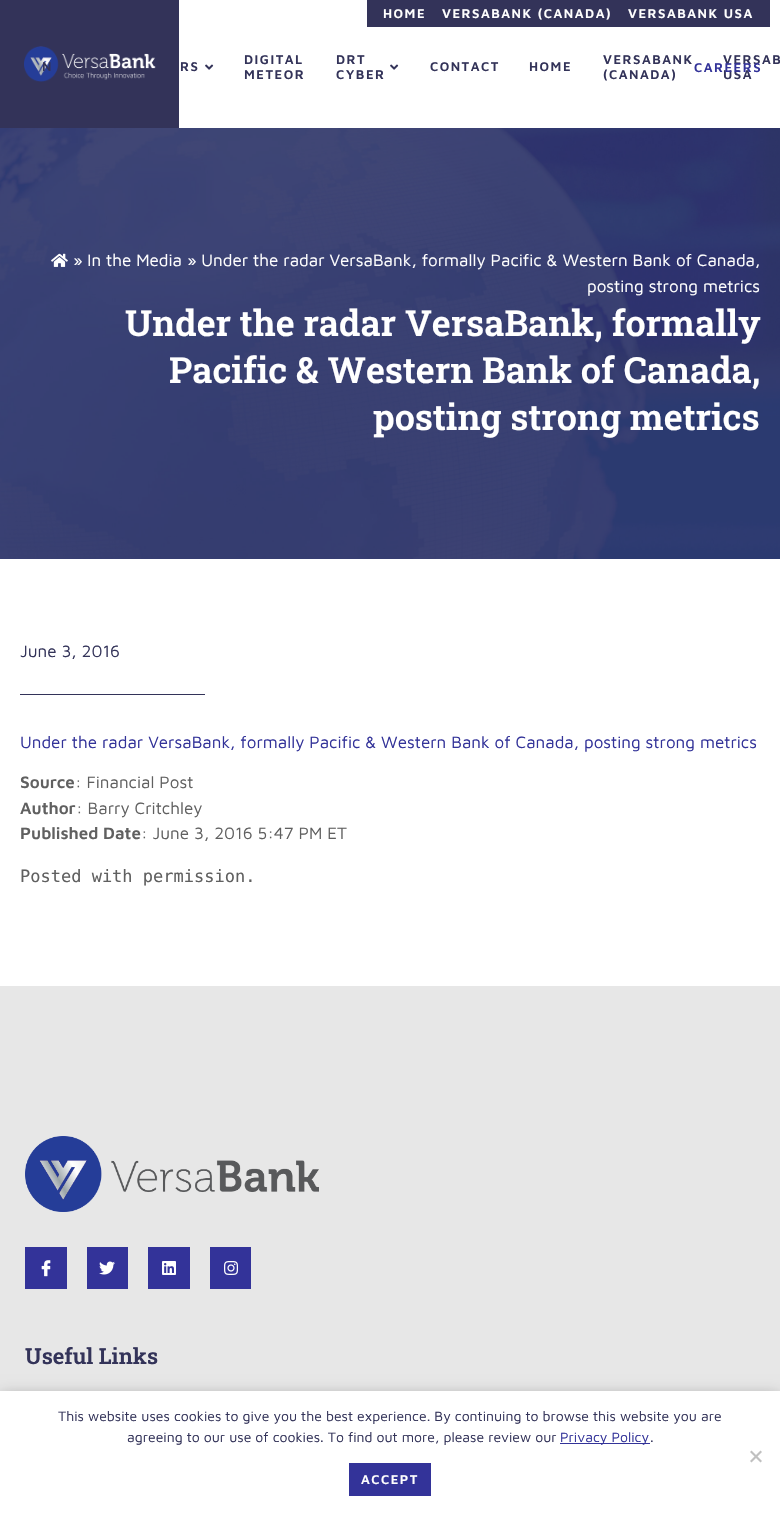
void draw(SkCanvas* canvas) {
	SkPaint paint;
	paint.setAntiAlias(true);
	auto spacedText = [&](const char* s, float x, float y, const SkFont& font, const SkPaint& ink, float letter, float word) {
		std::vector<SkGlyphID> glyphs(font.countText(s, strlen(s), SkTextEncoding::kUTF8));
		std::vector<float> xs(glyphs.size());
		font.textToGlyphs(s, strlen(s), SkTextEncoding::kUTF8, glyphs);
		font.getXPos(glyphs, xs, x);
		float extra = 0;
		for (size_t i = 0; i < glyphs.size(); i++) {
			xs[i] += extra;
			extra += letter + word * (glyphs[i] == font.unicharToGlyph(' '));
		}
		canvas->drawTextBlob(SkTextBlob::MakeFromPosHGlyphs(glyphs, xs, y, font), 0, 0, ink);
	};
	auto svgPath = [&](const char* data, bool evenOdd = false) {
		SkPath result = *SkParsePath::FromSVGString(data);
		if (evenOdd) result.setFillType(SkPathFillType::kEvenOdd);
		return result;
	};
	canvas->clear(0xffffffff);
	paint.setColor(0xff333359);
	canvas->drawRect(SkRect::MakeXYWH(0, 0, 179, 128), paint);
	canvas->drawImageRect(SkImages::DeferredFromEncodedData(SkData::MakeFromFileName("img1.png")), SkRect::MakeXYWH(24, 46, 132, 36), SkSamplingOptions());
	canvas->drawRect(SkRect::MakeXYWH(367, 0, 403, 27), paint);
	SkFont f1(fontMgr->matchFamilyStyle("Maven Pro", SkFontStyle(600, SkFontStyle::kNormal_Width, SkFontStyle::kUpright_Slant)), 13);
	f1.setSubpixel(true);
	paint.setColor(0xffffffff);
	spacedText("HOME", 383, 18, f1, paint, 1.5, 0);
	spacedText("VERSABANK (CANADA)", 442, 18, f1, paint, 1.5, 0);
	spacedText("VERSABANK USA", 628, 18, f1, paint, 1.5, 0);
	paint.setColor(0xff333359);
	spacedText("N", 42, 71, f1, paint, 1.5, 0);
	spacedText("RS", 180, 71, f1, paint, 1.5, 0);
	canvas->drawImageRect(SkImages::DeferredFromEncodedData(SkData::MakeFromFileName("img2.png")), SkRect::MakeXYWH(205, 64, 9, 6), SkSamplingOptions());
	spacedText("DIGITAL", 244, 64, f1, paint, 1.5, 0);
	spacedText("METEOR", 244, 79, f1, paint, 1.5, 0);
	spacedText("DRT", 336, 64, f1, paint, 1.5, 0);
	canvas->drawImageRect(SkImages::DeferredFromEncodedData(SkData::MakeFromFileName("img2.png")), SkRect::MakeXYWH(390, 64, 9, 6), SkSamplingOptions());
	spacedText("CYBER", 336, 79, f1, paint, 1.5, 0);
	spacedText("CONTACT", 430, 71, f1, paint, 1.5, 0);
	spacedText("HOME", 529, 71, f1, paint, 1.5, 0);
	spacedText("VERSABANK", 603, 64, f1, paint, 1.5, 0);
	spacedText("(CANADA)", 603, 79, f1, paint, 1.5, 0);
	spacedText("VERSAB", 723, 64, f1, paint, 1.5, 0);
	spacedText("USA", 723, 79, f1, paint, 1.5, 0);
	paint.setColor(0xff333399);
	spacedText("CAREERS", 694, 72, f1, paint, 1.5, 0);
	canvas->drawImageRect(SkImages::DeferredFromEncodedData(SkData::MakeFromFileName("img3.png")), SkRect::MakeXYWH(0, 128, 780, 431), SkSamplingOptions());
	canvas->drawImageRect(SkImages::DeferredFromEncodedData(SkData::MakeFromFileName("img4.png")), SkRect::MakeXYWH(51, 253, 17, 14), SkSamplingOptions());
	SkFont f2(fontMgr->matchFamilyStyle("Maven Pro", SkFontStyle::Normal()), 17);
	f2.setSubpixel(true);
	paint.setColor(0xffffffff);
	canvas->drawString("» In the Media » Under the radar VersaBank, formally Pacific & Western Bank of Canada,", 73, 266, f2, paint);
	canvas->drawString("posting strong metrics", 587, 292, f2, paint);
	SkFont f3(fontMgr->matchFamilyStyle("Roboto Slab", SkFontStyle(600, SkFontStyle::kNormal_Width, SkFontStyle::kUpright_Slant)), 36);
	f3.setSubpixel(true);
	canvas->drawString("Under the radar VersaBank, formally", 125, 336, f3, paint);
	canvas->drawString("Pacific & Western Bank of Canada,", 169, 383, f3, paint);
	canvas->drawString("posting strong metrics", 373, 430, f3, paint);
	paint.setColor(0xff333359);
	canvas->drawString("June 3, 2016", 20, 657, f2, paint);
	canvas->drawRect(SkRect::MakeXYWH(20, 694, 185, 1), paint);
	paint.setColor(0xff333399);
	canvas->drawString("Under the radar VersaBank, formally Pacific & Western Bank of Canada, posting strong metrics", 20, 748, f2, paint);
	SkFont f4(fontMgr->matchFamilyStyle("Maven Pro", SkFontStyle(600, SkFontStyle::kNormal_Width, SkFontStyle::kUpright_Slant)), 17);
	f4.setSubpixel(true);
	paint.setColor(0xff606060);
	canvas->drawString("Source", 20, 788, f4, paint);
	canvas->drawString(": Financial Post", 75, 788, f2, paint);
	canvas->drawString("Author", 20, 814, f4, paint);
	canvas->drawString(": Barry Critchley", 76, 814, f2, paint);
	canvas->drawString("Published Date", 20, 839, f4, paint);
	canvas->drawString(": June 3, 2016 5:47 PM ET", 141, 839, f2, paint);
	SkFont f5(fontMgr->matchFamilyStyle("DejaVu Sans Mono", SkFontStyle::Normal()), 17);
	f5.setSubpixel(true);
	canvas->drawString("Posted with permission.", 20, 882, f5, paint);
	paint.setColor(0xffe7e7e7);
	canvas->drawRect(SkRect::MakeXYWH(0, 986, 780, 405), paint);
	canvas->drawImageRect(SkImages::DeferredFromEncodedData(SkData::MakeFromFileName("img5.png")), SkRect::MakeXYWH(25, 1136, 294, 76), SkSamplingOptions());
	paint.setColor(0xff333399);
	canvas->drawRect(SkRect::MakeXYWH(25, 1247, 42, 42), paint);
	canvas->drawImageRect(SkImages::DeferredFromEncodedData(SkData::MakeFromFileName("img6.png")), SkRect::MakeXYWH(41, 1260, 10, 17), SkSamplingOptions());
	canvas->drawRect(SkRect::MakeXYWH(87, 1247, 41, 42), paint);
	canvas->drawImageRect(SkImages::DeferredFromEncodedData(SkData::MakeFromFileName("img7.png")), SkRect::MakeXYWH(99, 1261, 16, 14), SkSamplingOptions());
	canvas->drawRect(SkRect::MakeXYWH(148, 1247, 42, 42), paint);
	canvas->drawImageRect(SkImages::DeferredFromEncodedData(SkData::MakeFromFileName("img8.png")), SkRect::MakeXYWH(162, 1261, 14, 14), SkSamplingOptions());
	canvas->drawRect(SkRect::MakeXYWH(210, 1247, 41, 42), paint);
	canvas->drawImageRect(SkImages::DeferredFromEncodedData(SkData::MakeFromFileName("img9.png")), SkRect::MakeXYWH(224, 1261, 14, 14), SkSamplingOptions());
	SkFont f6(fontMgr->matchFamilyStyle("Roboto Slab", SkFontStyle(600, SkFontStyle::kNormal_Width, SkFontStyle::kUpright_Slant)), 22);
	f6.setSubpixel(true);
	paint.setColor(0xff333359);
	canvas->drawString("Useful Links", 25, 1364, f6, paint);
	paint.setColor(0x59000000);
	paint.setMaskFilter(SkMaskFilter::MakeBlur(kNormal_SkBlurStyle, 7.5));
	canvas->drawRect(SkRect::MakeXYWH(0, 1396, 780, 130), paint);
	paint.setMaskFilter(nullptr);
	paint.setColor(0xffffffff);
	canvas->drawRect(SkRect::MakeXYWH(0, 1391, 780, 130), paint);
	SkFont f7(fontMgr->matchFamilyStyle("Maven Pro", SkFontStyle::Normal()), 14);
	f7.setSubpixel(true);
	paint.setColor(0xff333359);
	canvas->drawString("This website uses cookies to give you the best experience. By continuing to browse this website you are", 58, 1421, f7, paint);
	canvas->drawString("agreeing to our use of cookies. To find out more, please review our", 127, 1442, f7, paint);
	paint.setColor(0xff333399);
	canvas->drawRect(SkRect::MakeXYWH(560, 1443, 90, 1), paint);
	canvas->drawString("Privacy Policy", 560, 1442, f7, paint);
	paint.setColor(0xff333359);
	canvas->drawString(".", 650, 1442, f7, paint);
	paint.setColor(0xffc0c0c0);
	canvas->drawPath(svgPath("M760.5 1450.5L762 1452L751.5 1462.5L750 1461Z"), paint);
	canvas->drawPath(svgPath("M750 1452L751.5 1450.5L762 1461L760.5 1462.5Z"), paint);
	paint.setColor(0xff333399);
	canvas->drawRect(SkRect::MakeXYWH(349, 1463, 82, 33), paint);
	paint.setColor(0xffffffff);
	spacedText("ACCEPT", 361, 1484, f1, paint, 1.5, 0);
}
